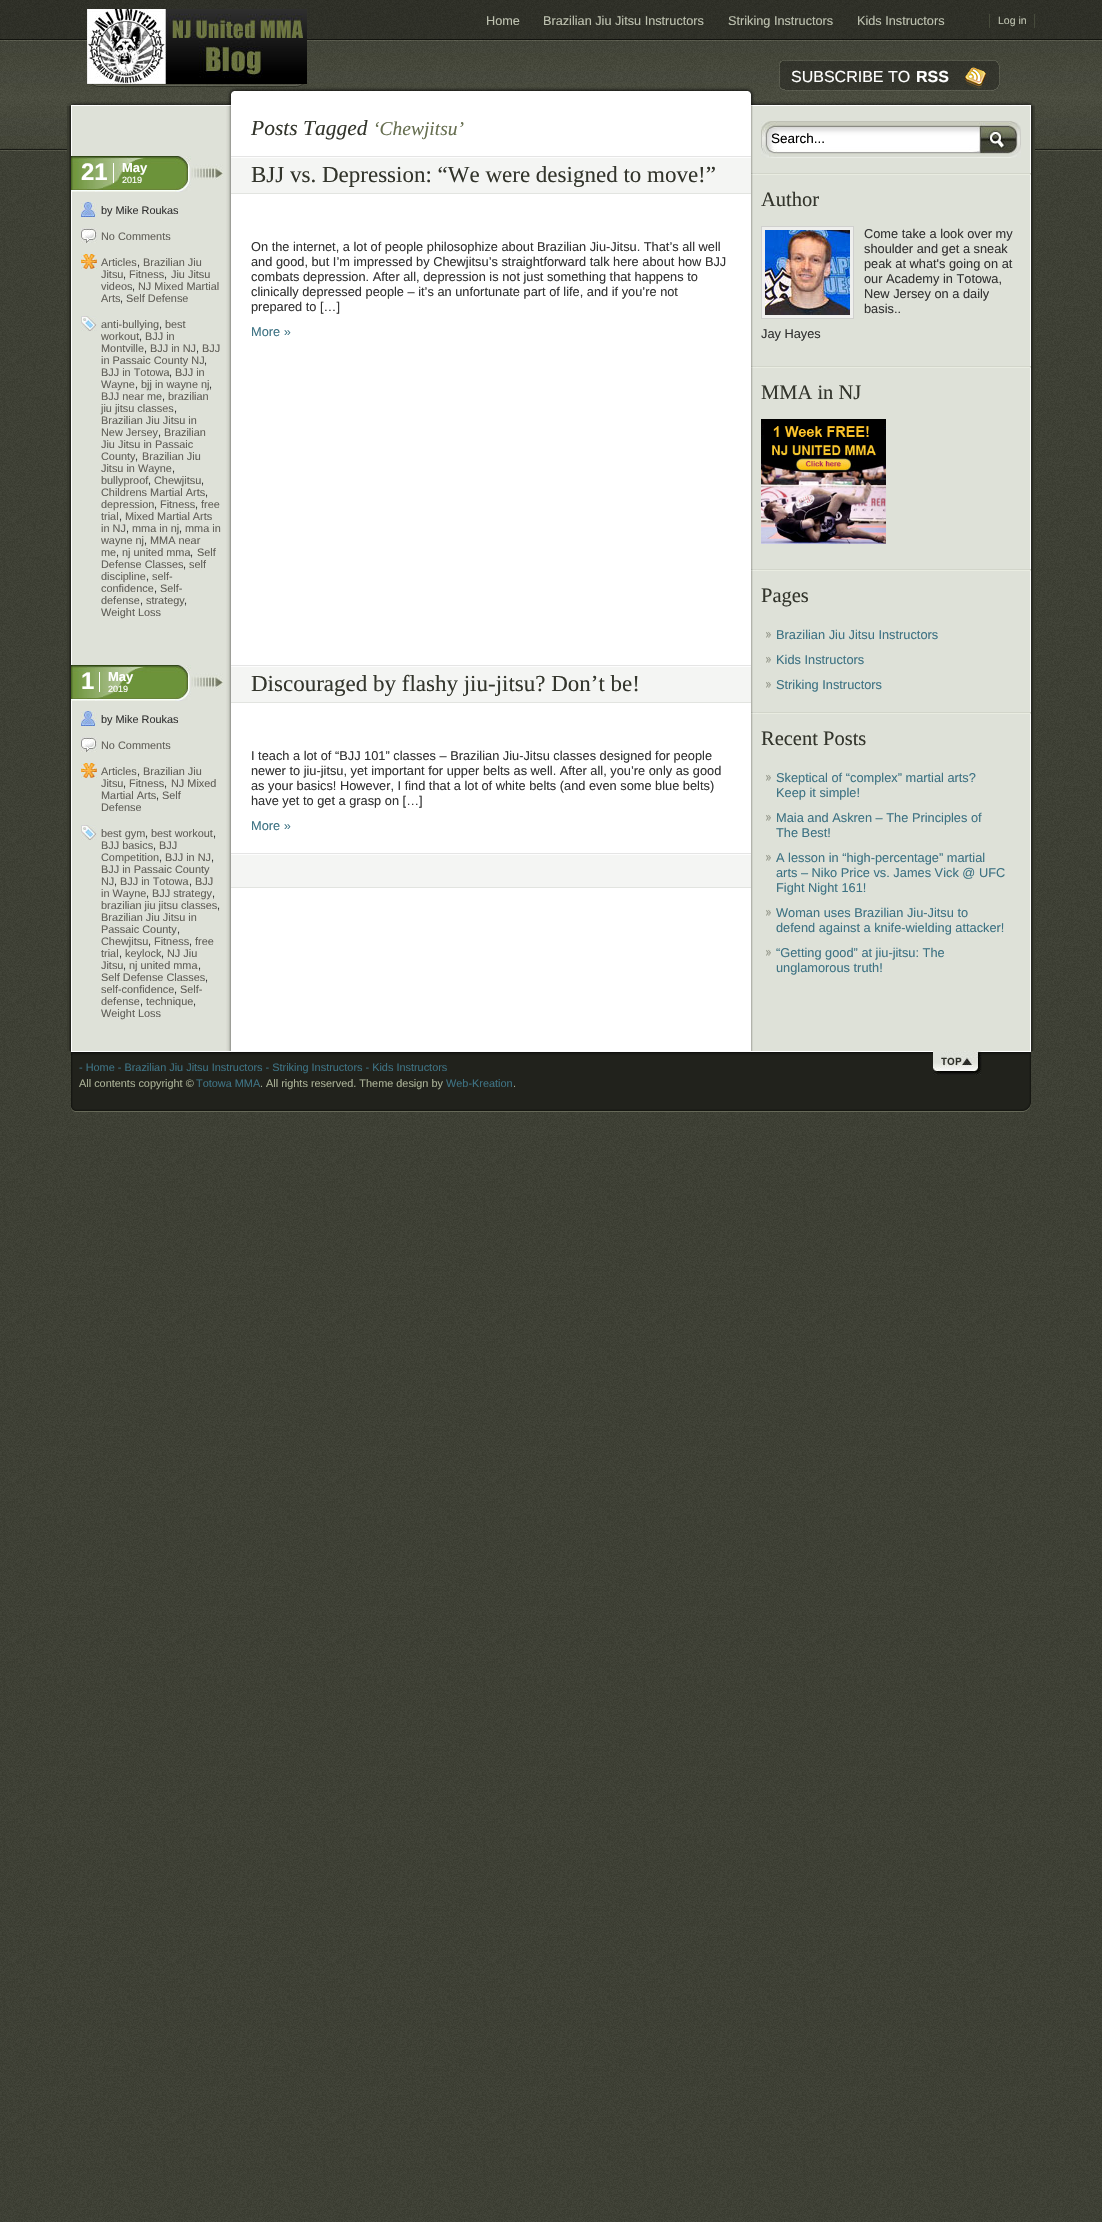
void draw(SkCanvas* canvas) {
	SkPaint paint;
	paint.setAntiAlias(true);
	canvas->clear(0xffffffff);
	canvas->drawImageRect(SkImages::DeferredFromEncodedData(SkData::MakeFromFileName("img1.png")), SkRect::MakeXYWH(0, 151, 1102, 2071), SkSamplingOptions());
	canvas->drawImageRect(SkImages::DeferredFromEncodedData(SkData::MakeFromFileName("img2.png")), SkRect::MakeXYWH(0, 0, 1102, 151), SkSamplingOptions());
	canvas->drawImageRect(SkImages::DeferredFromEncodedData(SkData::MakeFromFileName("img3.png")), SkRect::MakeXYWH(67, 83, 968, 23), SkSamplingOptions());
	canvas->drawImageRect(SkImages::DeferredFromEncodedData(SkData::MakeFromFileName("img4.png")), SkRect::MakeXYWH(88, 84, 219, 3), SkSamplingOptions());
	canvas->drawImageRect(SkImages::DeferredFromEncodedData(SkData::MakeFromFileName("img5.png")), SkRect::MakeXYWH(87, 9, 220, 75), SkSamplingOptions());
	paint.setStroke(true);
	paint.setStrokeWidth(1);
	paint.setColor(0xff2f3028);
	canvas->drawRect(SkRect::MakeXYWH(477.5, 8.5, 50, 25), paint);
	SkFont f1(fontMgr->matchFamilyStyle("Liberation Sans", SkFontStyle::Normal()), 12.7);
	f1.setSubpixel(true);
	paint.setStroke(false);
	paint.setColor(0xffbdc1af);
	canvas->drawString("Home", 486, 25, f1, paint);
	paint.setStroke(true);
	paint.setColor(0xff2f3028);
	canvas->drawRect(SkRect::MakeXYWH(534.5, 8.5, 178, 25), paint);
	paint.setStroke(false);
	paint.setColor(0xffbdc1af);
	canvas->drawString("Brazilian Jiu Jitsu Instructors", 543, 25, f1, paint);
	paint.setStroke(true);
	paint.setColor(0xff2f3028);
	canvas->drawRect(SkRect::MakeXYWH(719.5, 8.5, 122, 25), paint);
	paint.setStroke(false);
	paint.setColor(0xffbdc1af);
	canvas->drawString("Striking Instructors", 728, 25, f1, paint);
	paint.setStroke(true);
	paint.setColor(0xff2f3028);
	canvas->drawRect(SkRect::MakeXYWH(848.5, 8.5, 104, 25), paint);
	paint.setStroke(false);
	paint.setColor(0xffbdc1af);
	canvas->drawString("Kids Instructors", 857, 25, f1, paint);
	paint.setColor(0xff464a3b);
	canvas->drawRect(SkRect::MakeXYWH(989, 14, 1, 14), paint);
	canvas->drawRect(SkRect::MakeXYWH(1034, 14, 1, 14), paint);
	SkFont f2(fontMgr->matchFamilyStyle("Liberation Sans", SkFontStyle::Normal()), 10.5);
	f2.setSubpixel(true);
	paint.setColor(0xffbdc1af);
	canvas->drawString("Log in", 998, 24, f2, paint);
	canvas->drawImageRect(SkImages::DeferredFromEncodedData(SkData::MakeFromFileName("img6.png")), SkRect::MakeXYWH(779, 60, 221, 31), SkSamplingOptions());
	SkFont f3(fontMgr->matchFamilyStyle("Liberation Sans", SkFontStyle::Normal()), 16);
	f3.setSubpixel(true);
	paint.setColor(0xffffffff);
	canvas->drawString("SUBSCRIBE TO", 791, 82, f3, paint);
	SkFont f4(fontMgr->matchFamilyStyle("Liberation Sans", SkFontStyle::Bold()), 16);
	f4.setSubpixel(true);
	canvas->drawString("RSS", 916, 82, f4, paint);
	canvas->drawImageRect(SkImages::DeferredFromEncodedData(SkData::MakeFromFileName("img7.png")), SkRect::MakeXYWH(67, 106, 968, 945), SkSamplingOptions());
	SkFont f5(fontMgr->matchFamilyStyle("Liberation Serif", SkFontStyle::Italic()), 21.5);
	f5.setSubpixel(true);
	paint.setColor(0xff33352c);
	canvas->drawString("Posts Tagged", 251, 135, f5, paint);
	SkFont f6(fontMgr->matchFamilyStyle("Liberation Serif", SkFontStyle::Italic()), 19.5);
	f6.setSubpixel(true);
	paint.setColor(0xff676f51);
	canvas->drawString("‘Chewjitsu’", 373, 135, f6, paint);
	canvas->drawImageRect(SkImages::DeferredFromEncodedData(SkData::MakeFromFileName("img8.png")), SkRect::MakeXYWH(71, 156, 152, 36), SkSamplingOptions());
	paint.setColor(0xffffffff);
	canvas->drawRect(SkRect::MakeXYWH(113, 163, 1, 20), paint);
	SkFont f7(fontMgr->matchFamilyStyle("Liberation Sans", SkFontStyle::Bold()), 24);
	f7.setSubpixel(true);
	canvas->drawString("21", 81, 180, f7, paint);
	SkFont f8(fontMgr->matchFamilyStyle("Liberation Sans", SkFontStyle::Bold()), 13);
	f8.setSubpixel(true);
	canvas->drawString("May", 122, 172, f8, paint);
	SkFont f9(fontMgr->matchFamilyStyle("Liberation Sans", SkFontStyle::Normal()), 9);
	f9.setSubpixel(true);
	canvas->drawString("2019", 122, 183, f9, paint);
	canvas->drawImageRect(SkImages::DeferredFromEncodedData(SkData::MakeFromFileName("img9.png")), SkRect::MakeXYWH(81, 202, 16, 15), SkSamplingOptions());
	SkFont f10(fontMgr->matchFamilyStyle("Liberation Sans", SkFontStyle::Normal()), 10.9);
	f10.setSubpixel(true);
	paint.setColor(0xff333333);
	canvas->drawString("by Mike Roukas", 101, 214, f10, paint);
	canvas->drawImageRect(SkImages::DeferredFromEncodedData(SkData::MakeFromFileName("img10.png")), SkRect::MakeXYWH(81, 228, 16, 15), SkSamplingOptions());
	paint.setColor(0xff615f58);
	canvas->drawString("No Comments", 101, 240, f10, paint);
	canvas->drawImageRect(SkImages::DeferredFromEncodedData(SkData::MakeFromFileName("img11.png")), SkRect::MakeXYWH(81, 254, 16, 15), SkSamplingOptions());
	canvas->drawString("Articles", 101, 266, f10, paint);
	paint.setColor(0xff333333);
	canvas->drawString(",", 137, 266, f10, paint);
	paint.setColor(0xff615f58);
	canvas->drawString("Brazilian Jiu", 143, 266, f10, paint);
	canvas->drawString("Jitsu", 101, 278, f10, paint);
	paint.setColor(0xff333333);
	canvas->drawString(",", 123, 278, f10, paint);
	paint.setColor(0xff615f58);
	canvas->drawString("Fitness", 129, 278, f10, paint);
	paint.setColor(0xff333333);
	canvas->drawString(",", 164, 278, f10, paint);
	paint.setColor(0xff615f58);
	canvas->drawString("Jiu Jitsu", 171, 278, f10, paint);
	canvas->drawString("videos", 101, 290, f10, paint);
	paint.setColor(0xff333333);
	canvas->drawString(",", 132, 290, f10, paint);
	paint.setColor(0xff615f58);
	canvas->drawString("NJ Mixed Martial", 138, 290, f10, paint);
	canvas->drawString("Arts", 101, 302, f10, paint);
	paint.setColor(0xff333333);
	canvas->drawString(",", 120, 302, f10, paint);
	paint.setColor(0xff615f58);
	canvas->drawString("Self Defense", 126, 302, f10, paint);
	canvas->drawImageRect(SkImages::DeferredFromEncodedData(SkData::MakeFromFileName("img12.png")), SkRect::MakeXYWH(81, 316, 16, 15), SkSamplingOptions());
	canvas->drawString("anti-bullying", 101, 328, f10, paint);
	paint.setColor(0xff333333);
	canvas->drawString(",", 159, 328, f10, paint);
	paint.setColor(0xff615f58);
	canvas->drawString("best", 165, 328, f10, paint);
	canvas->drawString("workout", 101, 340, f10, paint);
	paint.setColor(0xff333333);
	canvas->drawString(",", 139, 340, f10, paint);
	paint.setColor(0xff615f58);
	canvas->drawString("BJJ in", 145, 340, f10, paint);
	canvas->drawString("Montville", 101, 352, f10, paint);
	paint.setColor(0xff333333);
	canvas->drawString(",", 144, 352, f10, paint);
	paint.setColor(0xff615f58);
	canvas->drawString("BJJ in NJ", 150, 352, f10, paint);
	paint.setColor(0xff333333);
	canvas->drawString(",", 196, 352, f10, paint);
	paint.setColor(0xff615f58);
	canvas->drawString("BJJ", 202, 352, f10, paint);
	canvas->drawString("in Passaic County NJ", 101, 364, f10, paint);
	paint.setColor(0xff333333);
	canvas->drawString(",", 204, 364, f10, paint);
	paint.setColor(0xff615f58);
	canvas->drawString("BJJ in Totowa", 101, 376, f10, paint);
	paint.setColor(0xff333333);
	canvas->drawString(",", 169, 376, f10, paint);
	paint.setColor(0xff615f58);
	canvas->drawString("BJJ in", 175, 376, f10, paint);
	canvas->drawString("Wayne", 101, 388, f10, paint);
	paint.setColor(0xff333333);
	canvas->drawString(",", 135, 388, f10, paint);
	paint.setColor(0xff615f58);
	canvas->drawString("bjj in wayne nj", 141, 388, f10, paint);
	paint.setColor(0xff333333);
	canvas->drawString(",", 209, 388, f10, paint);
	paint.setColor(0xff615f58);
	canvas->drawString("BJJ near me", 101, 400, f10, paint);
	paint.setColor(0xff333333);
	canvas->drawString(",", 162, 400, f10, paint);
	paint.setColor(0xff615f58);
	canvas->drawString("brazilian", 168, 400, f10, paint);
	canvas->drawString("jiu jitsu classes", 101, 412, f10, paint);
	paint.setColor(0xff333333);
	canvas->drawString(",", 174, 412, f10, paint);
	paint.setColor(0xff615f58);
	canvas->drawString("Brazilian Jiu Jitsu in", 101, 424, f10, paint);
	canvas->drawString("New Jersey", 101, 436, f10, paint);
	paint.setColor(0xff333333);
	canvas->drawString(",", 158, 436, f10, paint);
	paint.setColor(0xff615f58);
	canvas->drawString("Brazilian", 164, 436, f10, paint);
	canvas->drawString("Jiu Jitsu in Passaic", 101, 448, f10, paint);
	canvas->drawString("County", 101, 460, f10, paint);
	paint.setColor(0xff333333);
	canvas->drawString(",", 135, 460, f10, paint);
	paint.setColor(0xff615f58);
	canvas->drawString("Brazilian Jiu", 142, 460, f10, paint);
	canvas->drawString("Jitsu in Wayne", 101, 472, f10, paint);
	paint.setColor(0xff333333);
	canvas->drawString(",", 172, 472, f10, paint);
	paint.setColor(0xff615f58);
	canvas->drawString("bullyproof", 101, 484, f10, paint);
	paint.setColor(0xff333333);
	canvas->drawString(",", 148, 484, f10, paint);
	paint.setColor(0xff615f58);
	canvas->drawString("Chewjitsu", 154, 484, f10, paint);
	paint.setColor(0xff333333);
	canvas->drawString(",", 201, 484, f10, paint);
	paint.setColor(0xff615f58);
	canvas->drawString("Childrens Martial Arts", 101, 496, f10, paint);
	paint.setColor(0xff333333);
	canvas->drawString(",", 205, 496, f10, paint);
	paint.setColor(0xff615f58);
	canvas->drawString("depression", 101, 508, f10, paint);
	paint.setColor(0xff333333);
	canvas->drawString(",", 154, 508, f10, paint);
	paint.setColor(0xff615f58);
	canvas->drawString("Fitness", 160, 508, f10, paint);
	paint.setColor(0xff333333);
	canvas->drawString(",", 195, 508, f10, paint);
	paint.setColor(0xff615f58);
	canvas->drawString("free", 201, 508, f10, paint);
	canvas->drawString("trial", 101, 520, f10, paint);
	paint.setColor(0xff333333);
	canvas->drawString(",", 119, 520, f10, paint);
	paint.setColor(0xff615f58);
	canvas->drawString("Mixed Martial Arts", 125, 520, f10, paint);
	canvas->drawString("in NJ", 101, 532, f10, paint);
	paint.setColor(0xff333333);
	canvas->drawString(",", 126, 532, f10, paint);
	paint.setColor(0xff615f58);
	canvas->drawString("mma in nj", 132, 532, f10, paint);
	paint.setColor(0xff333333);
	canvas->drawString(",", 179, 532, f10, paint);
	paint.setColor(0xff615f58);
	canvas->drawString("mma in", 185, 532, f10, paint);
	canvas->drawString("wayne nj", 101, 544, f10, paint);
	paint.setColor(0xff333333);
	canvas->drawString(",", 144, 544, f10, paint);
	paint.setColor(0xff615f58);
	canvas->drawString("MMA near", 150, 544, f10, paint);
	canvas->drawString("me", 101, 556, f10, paint);
	paint.setColor(0xff333333);
	canvas->drawString(",", 116, 556, f10, paint);
	paint.setColor(0xff615f58);
	canvas->drawString("nj united mma", 122, 556, f10, paint);
	paint.setColor(0xff333333);
	canvas->drawString(",", 190, 556, f10, paint);
	paint.setColor(0xff615f58);
	canvas->drawString("Self", 197, 556, f10, paint);
	canvas->drawString("Defense Classes", 101, 568, f10, paint);
	paint.setColor(0xff333333);
	canvas->drawString(",", 183, 568, f10, paint);
	paint.setColor(0xff615f58);
	canvas->drawString("self", 189, 568, f10, paint);
	canvas->drawString("discipline", 101, 580, f10, paint);
	paint.setColor(0xff333333);
	canvas->drawString(",", 146, 580, f10, paint);
	paint.setColor(0xff615f58);
	canvas->drawString("self-", 152, 580, f10, paint);
	canvas->drawString("confidence", 101, 592, f10, paint);
	paint.setColor(0xff333333);
	canvas->drawString(",", 154, 592, f10, paint);
	paint.setColor(0xff615f58);
	canvas->drawString("Self-", 160, 592, f10, paint);
	canvas->drawString("defense", 101, 604, f10, paint);
	paint.setColor(0xff333333);
	canvas->drawString(",", 140, 604, f10, paint);
	paint.setColor(0xff615f58);
	canvas->drawString("strategy", 146, 604, f10, paint);
	paint.setColor(0xff333333);
	canvas->drawString(",", 184, 604, f10, paint);
	paint.setColor(0xff615f58);
	canvas->drawString("Weight Loss", 101, 616, f10, paint);
	paint.setColor(0xfff4f5f3);
	canvas->drawRect(SkRect::MakeXYWH(231, 158, 520, 35), paint);
	canvas->drawImageRect(SkImages::DeferredFromEncodedData(SkData::MakeFromFileName("img13.png")), SkRect::MakeXYWH(231, 156, 520, 2), SkSamplingOptions());
	paint.setColor(0xffe2e4e0);
	canvas->drawRect(SkRect::MakeXYWH(231, 193, 520, 1), paint);
	SkFont f11(fontMgr->matchFamilyStyle("Liberation Serif", SkFontStyle::Normal()), 23);
	f11.setSubpixel(true);
	paint.setColor(0xff33352c);
	canvas->drawString("BJJ vs. Depression: “We were designed to move!”", 251, 182, f11, paint);
	SkFont f12(fontMgr->matchFamilyStyle("Liberation Sans", SkFontStyle::Normal()), 12.8);
	f12.setSubpixel(true);
	paint.setColor(0xff333333);
	canvas->drawString("On the internet, a lot of people philosophize about Brazilian Jiu-Jitsu. That’s all well", 251, 251, f12, paint);
	canvas->drawString("and good, but I’m impressed by Chewjitsu’s straightforward talk here about how BJJ", 251, 266, f12, paint);
	canvas->drawString("combats depression. After all, depression is not just something that happens to", 251, 281, f12, paint);
	canvas->drawString("clinically depressed people – it’s an unfortunate part of life, and if you’re not", 251, 296, f12, paint);
	canvas->drawString("prepared to […]", 251, 311, f12, paint);
	paint.setColor(0xff3d7283);
	canvas->drawString("More »", 251, 336, f12, paint);
	canvas->drawImageRect(SkImages::DeferredFromEncodedData(SkData::MakeFromFileName("img8.png")), SkRect::MakeXYWH(71, 665, 152, 36), SkSamplingOptions());
	paint.setColor(0xffffffff);
	canvas->drawRect(SkRect::MakeXYWH(99, 672, 1, 20), paint);
	canvas->drawString("1", 81, 689, f7, paint);
	canvas->drawString("May", 108, 681, f8, paint);
	canvas->drawString("2019", 108, 692, f9, paint);
	canvas->drawImageRect(SkImages::DeferredFromEncodedData(SkData::MakeFromFileName("img9.png")), SkRect::MakeXYWH(81, 711, 16, 15), SkSamplingOptions());
	paint.setColor(0xff333333);
	canvas->drawString("by Mike Roukas", 101, 723, f10, paint);
	canvas->drawImageRect(SkImages::DeferredFromEncodedData(SkData::MakeFromFileName("img10.png")), SkRect::MakeXYWH(81, 737, 16, 15), SkSamplingOptions());
	paint.setColor(0xff615f58);
	canvas->drawString("No Comments", 101, 749, f10, paint);
	canvas->drawImageRect(SkImages::DeferredFromEncodedData(SkData::MakeFromFileName("img11.png")), SkRect::MakeXYWH(81, 763, 16, 15), SkSamplingOptions());
	canvas->drawString("Articles", 101, 775, f10, paint);
	paint.setColor(0xff333333);
	canvas->drawString(",", 137, 775, f10, paint);
	paint.setColor(0xff615f58);
	canvas->drawString("Brazilian Jiu", 143, 775, f10, paint);
	canvas->drawString("Jitsu", 101, 787, f10, paint);
	paint.setColor(0xff333333);
	canvas->drawString(",", 123, 787, f10, paint);
	paint.setColor(0xff615f58);
	canvas->drawString("Fitness", 129, 787, f10, paint);
	paint.setColor(0xff333333);
	canvas->drawString(",", 164, 787, f10, paint);
	paint.setColor(0xff615f58);
	canvas->drawString("NJ Mixed", 171, 787, f10, paint);
	canvas->drawString("Martial Arts", 101, 799, f10, paint);
	paint.setColor(0xff333333);
	canvas->drawString(",", 156, 799, f10, paint);
	paint.setColor(0xff615f58);
	canvas->drawString("Self", 162, 799, f10, paint);
	canvas->drawString("Defense", 101, 811, f10, paint);
	canvas->drawImageRect(SkImages::DeferredFromEncodedData(SkData::MakeFromFileName("img12.png")), SkRect::MakeXYWH(81, 825, 16, 15), SkSamplingOptions());
	canvas->drawString("best gym", 101, 837, f10, paint);
	paint.setColor(0xff333333);
	canvas->drawString(",", 145, 837, f10, paint);
	paint.setColor(0xff615f58);
	canvas->drawString("best workout", 151, 837, f10, paint);
	paint.setColor(0xff333333);
	canvas->drawString(",", 213, 837, f10, paint);
	paint.setColor(0xff615f58);
	canvas->drawString("BJJ basics", 101, 849, f10, paint);
	paint.setColor(0xff333333);
	canvas->drawString(",", 153, 849, f10, paint);
	paint.setColor(0xff615f58);
	canvas->drawString("BJJ", 159, 849, f10, paint);
	canvas->drawString("Competition", 101, 861, f10, paint);
	paint.setColor(0xff333333);
	canvas->drawString(",", 159, 861, f10, paint);
	paint.setColor(0xff615f58);
	canvas->drawString("BJJ in NJ", 165, 861, f10, paint);
	paint.setColor(0xff333333);
	canvas->drawString(",", 211, 861, f10, paint);
	paint.setColor(0xff615f58);
	canvas->drawString("BJJ in Passaic County", 101, 873, f10, paint);
	canvas->drawString("NJ", 101, 885, f10, paint);
	paint.setColor(0xff333333);
	canvas->drawString(",", 114, 885, f10, paint);
	paint.setColor(0xff615f58);
	canvas->drawString("BJJ in Totowa", 120, 885, f10, paint);
	paint.setColor(0xff333333);
	canvas->drawString(",", 189, 885, f10, paint);
	paint.setColor(0xff615f58);
	canvas->drawString("BJJ", 195, 885, f10, paint);
	canvas->drawString("in Wayne", 101, 897, f10, paint);
	paint.setColor(0xff333333);
	canvas->drawString(",", 146, 897, f10, paint);
	paint.setColor(0xff615f58);
	canvas->drawString("BJJ strategy", 152, 897, f10, paint);
	paint.setColor(0xff333333);
	canvas->drawString(",", 212, 897, f10, paint);
	paint.setColor(0xff615f58);
	canvas->drawString("brazilian jiu jitsu classes", 101, 909, f10, paint);
	paint.setColor(0xff333333);
	canvas->drawString(",", 217, 909, f10, paint);
	paint.setColor(0xff615f58);
	canvas->drawString("Brazilian Jiu Jitsu in", 101, 921, f10, paint);
	canvas->drawString("Passaic County", 101, 933, f10, paint);
	paint.setColor(0xff333333);
	canvas->drawString(",", 177, 933, f10, paint);
	paint.setColor(0xff615f58);
	canvas->drawString("Chewjitsu", 101, 945, f10, paint);
	paint.setColor(0xff333333);
	canvas->drawString(",", 148, 945, f10, paint);
	paint.setColor(0xff615f58);
	canvas->drawString("Fitness", 154, 945, f10, paint);
	paint.setColor(0xff333333);
	canvas->drawString(",", 189, 945, f10, paint);
	paint.setColor(0xff615f58);
	canvas->drawString("free", 195, 945, f10, paint);
	canvas->drawString("trial", 101, 957, f10, paint);
	paint.setColor(0xff333333);
	canvas->drawString(",", 119, 957, f10, paint);
	paint.setColor(0xff615f58);
	canvas->drawString("keylock", 125, 957, f10, paint);
	paint.setColor(0xff333333);
	canvas->drawString(",", 161, 957, f10, paint);
	paint.setColor(0xff615f58);
	canvas->drawString("NJ Jiu", 167, 957, f10, paint);
	canvas->drawString("Jitsu", 101, 969, f10, paint);
	paint.setColor(0xff333333);
	canvas->drawString(",", 123, 969, f10, paint);
	paint.setColor(0xff615f58);
	canvas->drawString("nj united mma", 129, 969, f10, paint);
	paint.setColor(0xff333333);
	canvas->drawString(",", 198, 969, f10, paint);
	paint.setColor(0xff615f58);
	canvas->drawString("Self Defense Classes", 101, 981, f10, paint);
	paint.setColor(0xff333333);
	canvas->drawString(",", 205, 981, f10, paint);
	paint.setColor(0xff615f58);
	canvas->drawString("self-confidence", 101, 993, f10, paint);
	paint.setColor(0xff333333);
	canvas->drawString(",", 174, 993, f10, paint);
	paint.setColor(0xff615f58);
	canvas->drawString("Self-", 180, 993, f10, paint);
	canvas->drawString("defense", 101, 1005, f10, paint);
	paint.setColor(0xff333333);
	canvas->drawString(",", 140, 1005, f10, paint);
	paint.setColor(0xff615f58);
	canvas->drawString("technique", 146, 1005, f10, paint);
	paint.setColor(0xff333333);
	canvas->drawString(",", 193, 1005, f10, paint);
	paint.setColor(0xff615f58);
	canvas->drawString("Weight Loss", 101, 1017, f10, paint);
	paint.setColor(0xfff4f5f3);
	canvas->drawRect(SkRect::MakeXYWH(231, 667, 520, 35), paint);
	canvas->drawImageRect(SkImages::DeferredFromEncodedData(SkData::MakeFromFileName("img13.png")), SkRect::MakeXYWH(231, 665, 520, 2), SkSamplingOptions());
	paint.setColor(0xffe2e4e0);
	canvas->drawRect(SkRect::MakeXYWH(231, 702, 520, 1), paint);
	paint.setColor(0xff33352c);
	canvas->drawString("Discouraged by flashy jiu-jitsu? Don’t be!", 251, 691, f11, paint);
	paint.setColor(0xff333333);
	canvas->drawString("I teach a lot of “BJJ 101” classes – Brazilian Jiu-Jitsu classes designed for people", 251, 760, f12, paint);
	canvas->drawString("newer to jiu-jitsu, yet important for upper belts as well. After all, you’re only as good", 251, 775, f12, paint);
	canvas->drawString("as your basics! However, I find that a lot of white belts (and even some blue belts)", 251, 790, f12, paint);
	canvas->drawString("have yet to get a grasp on […]", 251, 805, f12, paint);
	paint.setColor(0xff3d7283);
	canvas->drawString("More »", 251, 830, f12, paint);
	paint.setColor(0xfff4f5f3);
	canvas->drawRect(SkRect::MakeXYWH(231, 855, 520, 32), paint);
	canvas->drawImageRect(SkImages::DeferredFromEncodedData(SkData::MakeFromFileName("img13.png")), SkRect::MakeXYWH(231, 853, 520, 2), SkSamplingOptions());
	paint.setColor(0xffe2e4e0);
	canvas->drawRect(SkRect::MakeXYWH(231, 887, 520, 1), paint);
	canvas->drawImageRect(SkImages::DeferredFromEncodedData(SkData::MakeFromFileName("img14.png")), SkRect::MakeXYWH(761, 121, 260, 37), SkSamplingOptions());
	SkFont f13(fontMgr->matchFamilyStyle("Liberation Sans", SkFontStyle::Normal()), 13.5);
	f13.setSubpixel(true);
	paint.setColor(0xff000000);
	canvas->drawString("Search...", 771, 143, f13, paint);
	canvas->drawImageRect(SkImages::DeferredFromEncodedData(SkData::MakeFromFileName("img15.png")), SkRect::MakeXYWH(751, 173, 280, 2), SkSamplingOptions());
	SkFont f14(fontMgr->matchFamilyStyle("Liberation Serif", SkFontStyle::Normal()), 20.5);
	f14.setSubpixel(true);
	paint.setColor(0xff33352c);
	canvas->drawString("Author", 761, 206, f14, paint);
	paint.setColor(0xffefefed);
	canvas->drawRect(SkRect::MakeXYWH(761.5, 226.5, 92, 92), paint);
	paint.setStroke(true);
	paint.setColor(0xffd0d0ce);
	canvas->drawRect(SkRect::MakeXYWH(761.5, 226.5, 92, 92), paint);
	canvas->drawImageRect(SkImages::DeferredFromEncodedData(SkData::MakeFromFileName("img16.png")), SkRect::MakeXYWH(765, 230, 85, 85), SkSamplingOptions());
	paint.setStroke(false);
	paint.setColor(0xff333333);
	canvas->drawString("Come take a look over my", 864, 238, f12, paint);
	canvas->drawString("shoulder and get a sneak", 864, 253, f12, paint);
	canvas->drawString("peak at what's going on at", 864, 268, f12, paint);
	canvas->drawString("our Academy in Totowa,", 864, 283, f12, paint);
	canvas->drawString("New Jersey on a daily", 864, 298, f12, paint);
	canvas->drawString("basis..", 864, 313, f12, paint);
	canvas->drawString("Jay Hayes", 761, 338, f12, paint);
	canvas->drawImageRect(SkImages::DeferredFromEncodedData(SkData::MakeFromFileName("img15.png")), SkRect::MakeXYWH(751, 366, 280, 2), SkSamplingOptions());
	paint.setColor(0xff33352c);
	canvas->drawString("MMA in NJ", 761, 399, f14, paint);
	canvas->drawImageRect(SkImages::DeferredFromEncodedData(SkData::MakeFromFileName("img17.png")), SkRect::MakeXYWH(761, 419, 125, 125), SkSamplingOptions());
	canvas->drawImageRect(SkImages::DeferredFromEncodedData(SkData::MakeFromFileName("img15.png")), SkRect::MakeXYWH(751, 569, 280, 2), SkSamplingOptions());
	canvas->drawString("Pages", 761, 602, f14, paint);
	canvas->drawImageRect(SkImages::DeferredFromEncodedData(SkData::MakeFromFileName("img18.png")), SkRect::MakeXYWH(766, 631, 5, 7), SkSamplingOptions());
	paint.setColor(0xff3d7283);
	canvas->drawString("Brazilian Jiu Jitsu Instructors", 776, 639, f12, paint);
	canvas->drawImageRect(SkImages::DeferredFromEncodedData(SkData::MakeFromFileName("img18.png")), SkRect::MakeXYWH(766, 656, 5, 7), SkSamplingOptions());
	canvas->drawString("Kids Instructors", 776, 664, f12, paint);
	canvas->drawImageRect(SkImages::DeferredFromEncodedData(SkData::MakeFromFileName("img18.png")), SkRect::MakeXYWH(766, 681, 5, 7), SkSamplingOptions());
	canvas->drawString("Striking Instructors", 776, 689, f12, paint);
	canvas->drawImageRect(SkImages::DeferredFromEncodedData(SkData::MakeFromFileName("img15.png")), SkRect::MakeXYWH(751, 712, 280, 2), SkSamplingOptions());
	paint.setColor(0xff33352c);
	canvas->drawString("Recent Posts", 761, 745, f14, paint);
	canvas->drawImageRect(SkImages::DeferredFromEncodedData(SkData::MakeFromFileName("img18.png")), SkRect::MakeXYWH(766, 774, 5, 7), SkSamplingOptions());
	paint.setColor(0xff3d7283);
	canvas->drawString("Skeptical of “complex” martial arts?", 776, 782, f12, paint);
	canvas->drawString("Keep it simple!", 776, 797, f12, paint);
	canvas->drawImageRect(SkImages::DeferredFromEncodedData(SkData::MakeFromFileName("img18.png")), SkRect::MakeXYWH(766, 814, 5, 7), SkSamplingOptions());
	canvas->drawString("Maia and Askren – The Principles of", 776, 822, f12, paint);
	canvas->drawString("The Best!", 776, 837, f12, paint);
	canvas->drawImageRect(SkImages::DeferredFromEncodedData(SkData::MakeFromFileName("img18.png")), SkRect::MakeXYWH(766, 854, 5, 7), SkSamplingOptions());
	canvas->drawString("A lesson in “high-percentage” martial", 776, 862, f12, paint);
	canvas->drawString("arts – Niko Price vs. James Vick @ UFC", 776, 877, f12, paint);
	canvas->drawString("Fight Night 161!", 776, 892, f12, paint);
	canvas->drawImageRect(SkImages::DeferredFromEncodedData(SkData::MakeFromFileName("img18.png")), SkRect::MakeXYWH(766, 909, 5, 7), SkSamplingOptions());
	canvas->drawString("Woman uses Brazilian Jiu-Jitsu to", 776, 917, f12, paint);
	canvas->drawString("defend against a knife-wielding attacker!", 776, 932, f12, paint);
	canvas->drawImageRect(SkImages::DeferredFromEncodedData(SkData::MakeFromFileName("img18.png")), SkRect::MakeXYWH(766, 949, 5, 7), SkSamplingOptions());
	canvas->drawString("“Getting good” at jiu-jitsu: The", 776, 957, f12, paint);
	canvas->drawString("unglamorous truth!", 776, 972, f12, paint);
	canvas->drawImageRect(SkImages::DeferredFromEncodedData(SkData::MakeFromFileName("img19.png")), SkRect::MakeXYWH(71, 1051, 960, 61), SkSamplingOptions());
	canvas->drawImageRect(SkImages::DeferredFromEncodedData(SkData::MakeFromFileName("img20.png")), SkRect::MakeXYWH(71, 1053, 4, 59), SkSamplingOptions());
	canvas->drawString("- Home - Brazilian Jiu Jitsu Instructors - Striking Instructors - Kids Instructors", 79, 1071, f10, paint);
	paint.setColor(0xffa9b095);
	canvas->drawString("All contents copyright ©", 79, 1087, f10, paint);
	paint.setColor(0xff3d7283);
	canvas->drawString("Totowa MMA", 196, 1087, f10, paint);
	paint.setColor(0xffa9b095);
	canvas->drawString(". All rights reserved. Theme design by", 260, 1087, f10, paint);
	paint.setColor(0xff3d7283);
	canvas->drawString("Web-Kreation", 446, 1087, f10, paint);
	paint.setColor(0xffa9b095);
	canvas->drawString(".", 513, 1087, f10, paint);
	canvas->drawImageRect(SkImages::DeferredFromEncodedData(SkData::MakeFromFileName("img21.png")), SkRect::MakeXYWH(933, 1051, 49, 24), SkSamplingOptions());
	canvas->drawImageRect(SkImages::DeferredFromEncodedData(SkData::MakeFromFileName("img22.png")), SkRect::MakeXYWH(1023, 1053, 8, 59), SkSamplingOptions());
}
